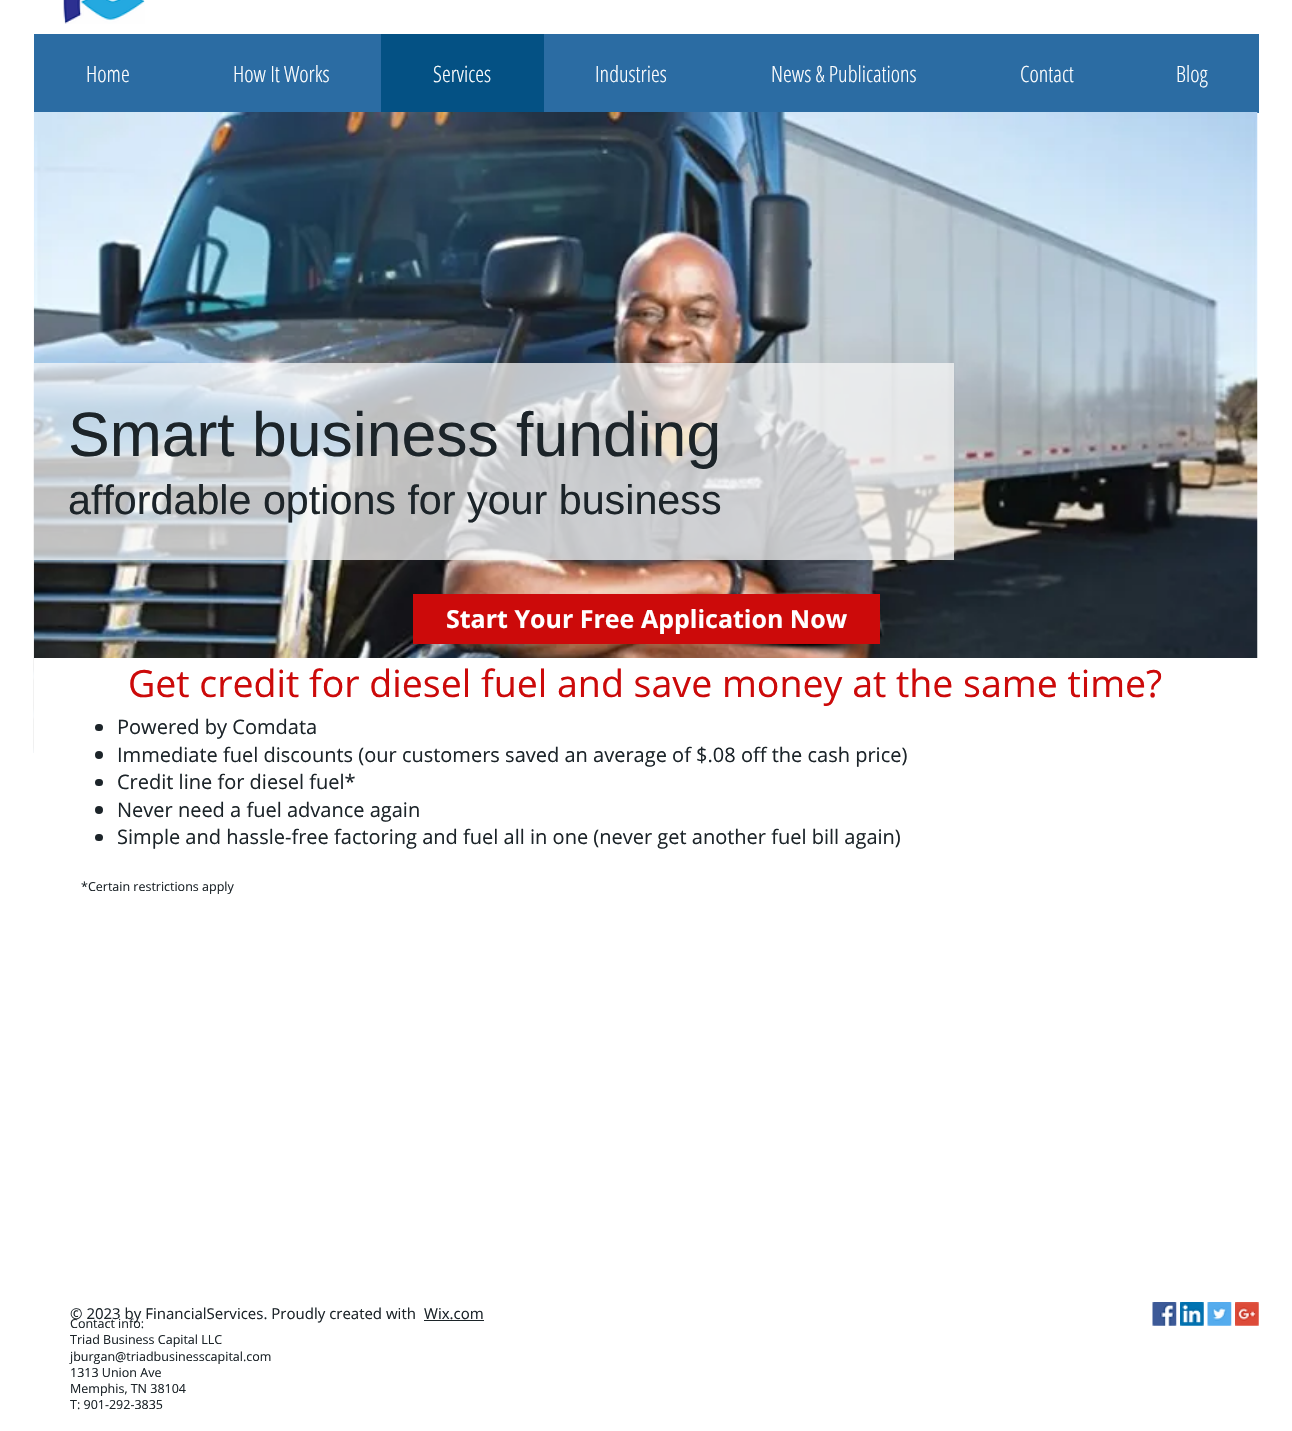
void draw(SkCanvas* canvas) {
	SkPaint paint;
	paint.setAntiAlias(true);
	canvas->clear(0xffffffff);
	canvas->drawImageRect(SkImages::DeferredFromEncodedData(SkData::MakeFromFileName("img1.png")), SkRect::MakeXYWH(63, 0, 82, 24), SkSamplingOptions());
	paint.setColor(0xff2b6ca3);
	canvas->drawRect(SkRect::MakeXYWH(34, 34, 347, 78), paint);
	SkFont f1(fontMgr->matchFamilyStyle("Open Sans Condensed", SkFontStyle(300, SkFontStyle::kNormal_Width, SkFontStyle::kUpright_Slant)), 22.5);
	f1.setSubpixel(true);
	paint.setColor(0xffffffff);
	canvas->drawString("Home", 86, 82, f1, paint);
	canvas->drawString("How It Works", 233, 82, f1, paint);
	paint.setColor(0xff045184);
	canvas->drawRect(SkRect::MakeXYWH(381, 34, 163, 78), paint);
	paint.setColor(0xffffffff);
	canvas->drawString("Services", 433, 82, f1, paint);
	paint.setColor(0xff2b6ca3);
	canvas->drawRect(SkRect::MakeXYWH(544, 34, 581, 78), paint);
	paint.setColor(0xffffffff);
	canvas->drawString("Industries", 595, 82, f1, paint);
	canvas->drawString("News & Publications", 771, 82, f1, paint);
	canvas->drawString("Contact", 1020, 82, f1, paint);
	paint.setColor(0xff2b6ca3);
	canvas->drawRect(SkRect::MakeXYWH(1125, 34, 134, 79), paint);
	paint.setColor(0xffffffff);
	canvas->drawString("Blog", 1176, 82, f1, paint);
	canvas->drawImageRect(SkImages::DeferredFromEncodedData(SkData::MakeFromFileName("img2.png")), SkRect::MakeXYWH(33, 112, 1225, 641), SkSamplingOptions());
	paint.setColor(0xbff7f7f7);
	canvas->drawRect(SkRect::MakeXYWH(34, 363, 920, 197), paint);
	paint.setColor(0xffcc0a0a);
	canvas->drawRect(SkRect::MakeXYWH(413, 594, 467, 50), paint);
	SkFont f2(fontMgr->matchFamilyStyle("Open Sans", SkFontStyle::Bold()), 25);
	f2.setSubpixel(true);
	paint.setColor(0xffffffff);
	canvas->drawString("Start Your Free Application Now", 446, 628, f2, paint);
	canvas->drawImageRect(SkImages::DeferredFromEncodedData(SkData::MakeFromFileName("img3.png")), SkRect::MakeXYWH(707, 644, 173, 14), SkSamplingOptions());
	SkFont f3(fontMgr->matchFamilyStyle("Liberation Sans", SkFontStyle::Normal()), 62.5);
	f3.setSubpixel(true);
	paint.setColor(0xff1c2429);
	canvas->drawString("Smart business funding", 68, 456, f3, paint);
	SkFont f4(fontMgr->matchFamilyStyle("Liberation Sans", SkFontStyle::Normal()), 41.25);
	f4.setSubpixel(true);
	canvas->drawString("affordable options for your business", 68, 514, f4, paint);
	paint.setColor(0xffffffff);
	canvas->drawRect(SkRect::MakeXYWH(34, 658, 1224, 95), paint);
	SkFont f5(fontMgr->matchFamilyStyle("Open Sans", SkFontStyle::Normal()), 37.5);
	f5.setSubpixel(true);
	paint.setColor(0xffcc0a0a);
	canvas->drawString("Get credit for diesel fuel and save money at the same time?", 128, 697, f5, paint);
	paint.setColor(0xff1c2429);
	canvas->drawRoundRect(SkRect::MakeXYWH(95, 724, 8, 7), 3.5, 3.5, paint);
	SkFont f6(fontMgr->matchFamilyStyle("Open Sans", SkFontStyle::Normal()), 20);
	f6.setSubpixel(true);
	canvas->drawString("Powered by Comdata", 117, 734, f6, paint);
	canvas->drawCircle(99, 755, 4, paint);
	canvas->drawString("Immediate fuel discounts (our customers saved an average of $.08 off the cash price)", 117, 762, f6, paint);
	canvas->drawRoundRect(SkRect::MakeXYWH(95, 779, 8, 7), 3.5, 3.5, paint);
	canvas->drawString("Credit line for diesel fuel*", 117, 789, f6, paint);
	canvas->drawCircle(99, 810, 4, paint);
	canvas->drawString("Never need a fuel advance again", 117, 817, f6, paint);
	canvas->drawRoundRect(SkRect::MakeXYWH(95, 834, 8, 7), 3.5, 3.5, paint);
	canvas->drawString("Simple and hassle-free factoring and fuel all in one (never get another fuel bill again)", 117, 844, f6, paint);
	SkFont f7(fontMgr->matchFamilyStyle("Open Sans", SkFontStyle::Normal()), 12.5);
	f7.setSubpixel(true);
	canvas->drawString("*Certain restrictions apply", 81, 891, f7, paint);
	SkFont f8(fontMgr->matchFamilyStyle("Open Sans", SkFontStyle::Normal()), 15);
	f8.setSubpixel(true);
	canvas->drawString("© 2023 by FinancialServices. Proudly created with", 70, 1319, f8, paint);
	canvas->drawString("Wix.com", 424, 1319, f8, paint);
	canvas->drawRect(SkRect::MakeXYWH(424, 1320, 60, 1), paint);
	canvas->drawImageRect(SkImages::DeferredFromEncodedData(SkData::MakeFromFileName("img4.png")), SkRect::MakeXYWH(1152, 1302, 25, 24), SkSamplingOptions());
	canvas->drawImageRect(SkImages::DeferredFromEncodedData(SkData::MakeFromFileName("img5.png")), SkRect::MakeXYWH(1180, 1302, 24, 24), SkSamplingOptions());
	canvas->drawImageRect(SkImages::DeferredFromEncodedData(SkData::MakeFromFileName("img6.png")), SkRect::MakeXYWH(1207, 1302, 25, 24), SkSamplingOptions());
	canvas->drawImageRect(SkImages::DeferredFromEncodedData(SkData::MakeFromFileName("img7.png")), SkRect::MakeXYWH(1235, 1302, 24, 24), SkSamplingOptions());
	canvas->drawString("Contact info:", 70, 1328, f7, paint);
	canvas->drawString("Triad Business Capital LLC", 70, 1344, f7, paint);
	canvas->drawString("jburgan@triadbusinesscapital.com", 70, 1361, f7, paint);
	canvas->drawString("1313 Union Ave", 70, 1377, f7, paint);
	canvas->drawString("Memphis, TN 38104", 70, 1393, f7, paint);
	canvas->drawString("T: 901-292-3835", 70, 1409, f7, paint);
}
